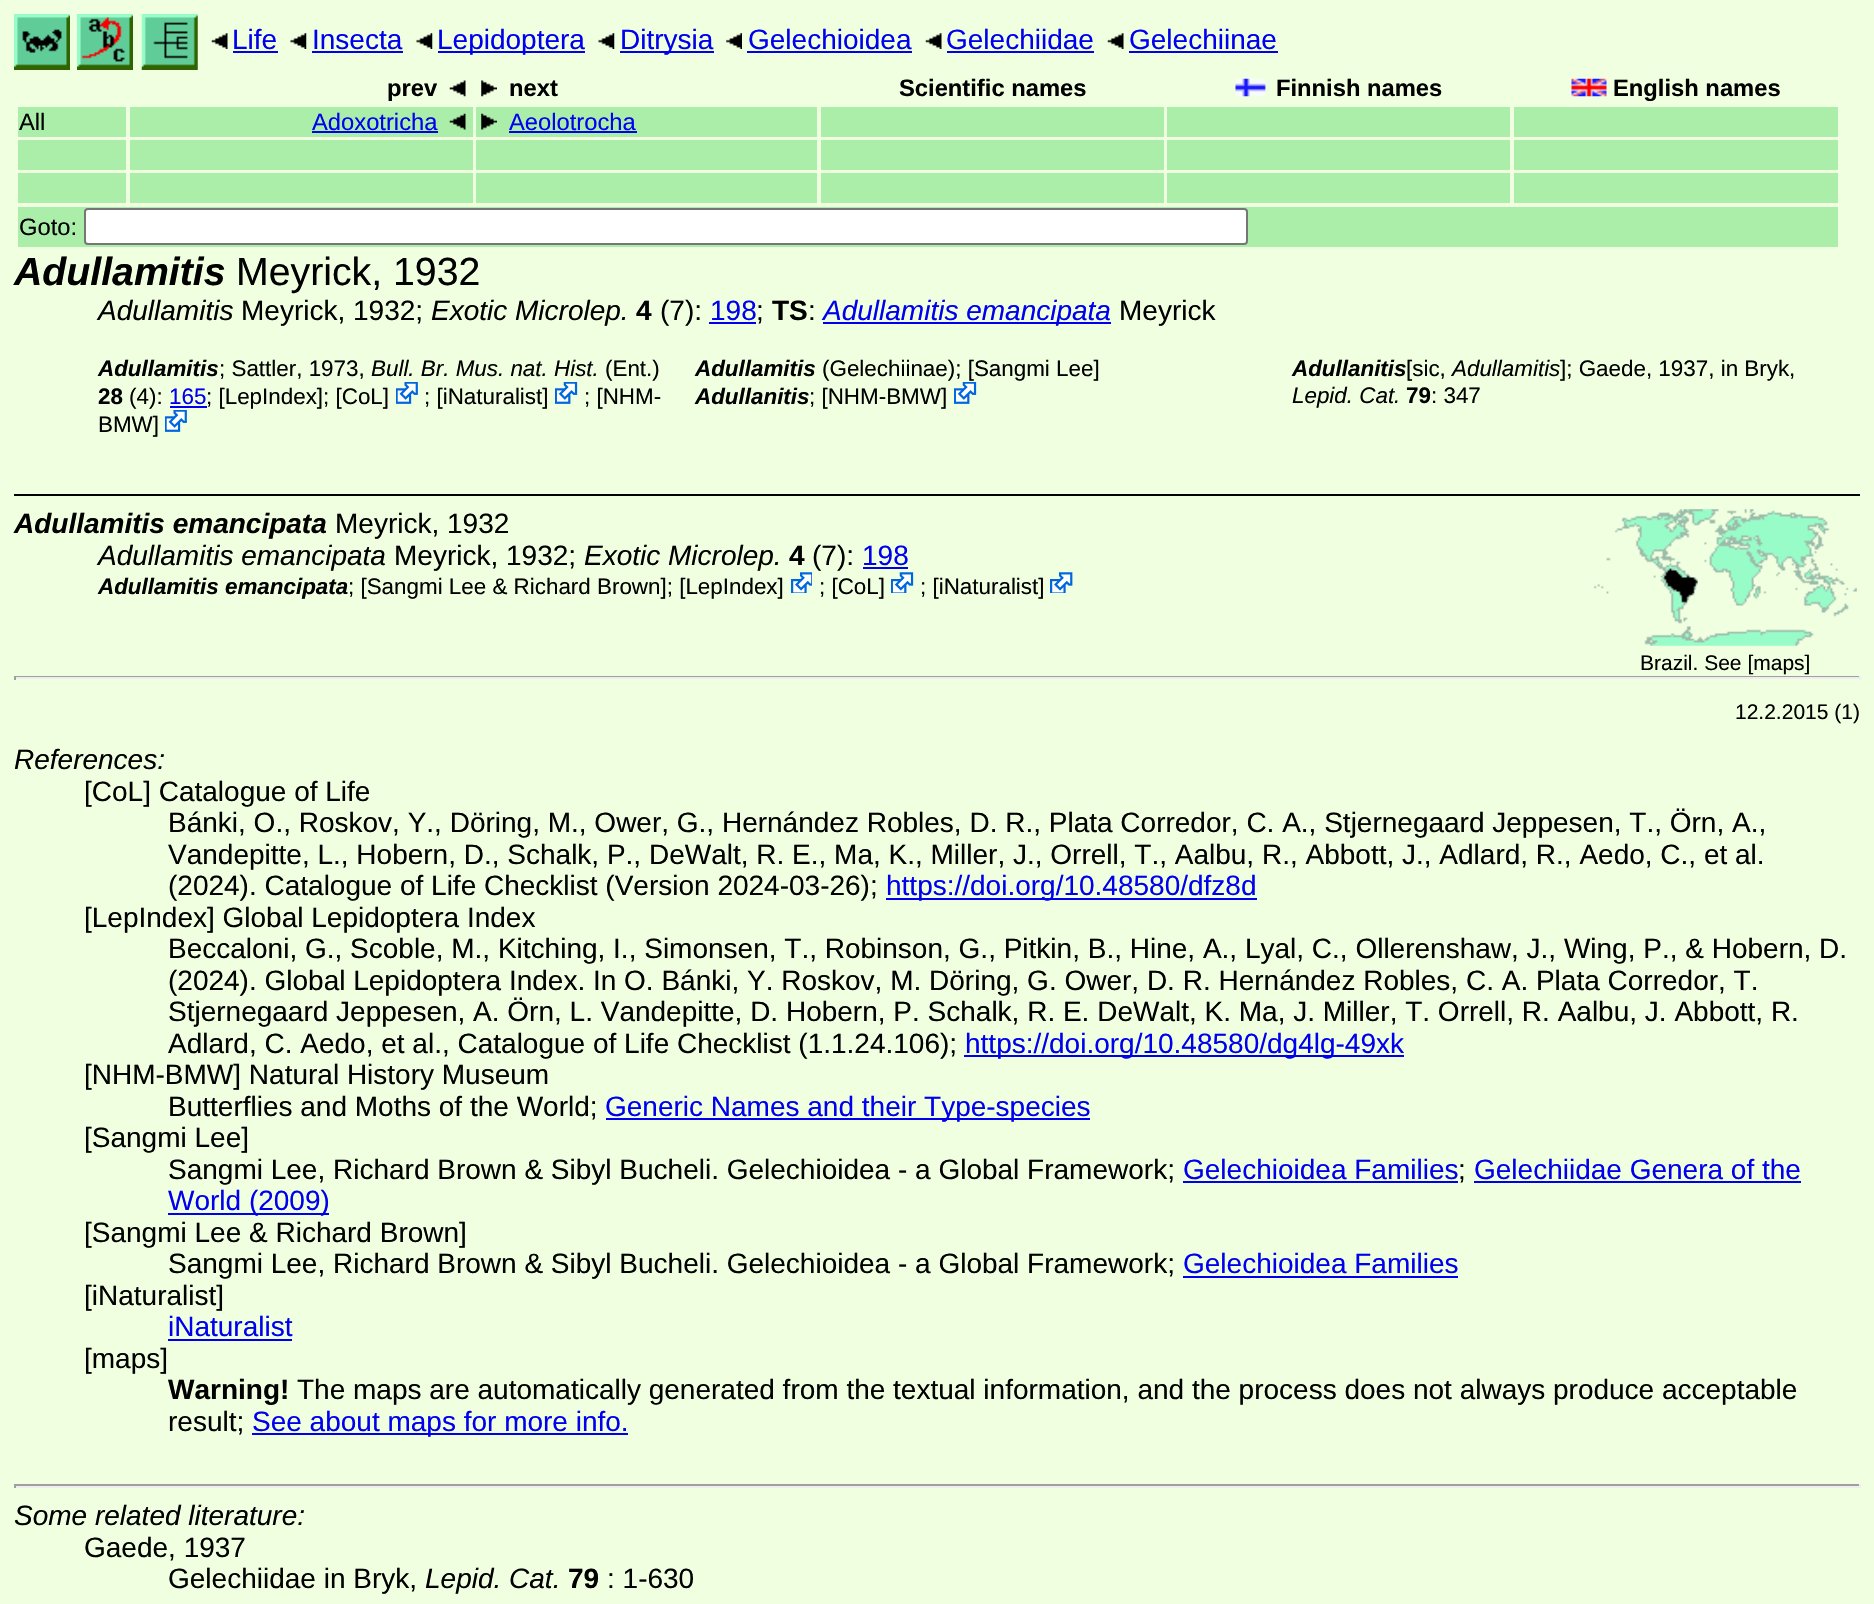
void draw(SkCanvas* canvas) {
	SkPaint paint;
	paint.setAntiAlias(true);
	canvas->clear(0xfff0ffe0);
	canvas->drawImageRect(SkImages::DeferredFromEncodedData(SkData::MakeFromFileName("img1.png")), SkRect::MakeXYWH(14, 14, 56, 56), SkSamplingOptions());
	canvas->drawImageRect(SkImages::DeferredFromEncodedData(SkData::MakeFromFileName("img2.png")), SkRect::MakeXYWH(77, 14, 56, 56), SkSamplingOptions());
	canvas->drawImageRect(SkImages::DeferredFromEncodedData(SkData::MakeFromFileName("img3.png")), SkRect::MakeXYWH(141, 14, 57, 56), SkSamplingOptions());
	canvas->drawImageRect(SkImages::DeferredFromEncodedData(SkData::MakeFromFileName("img4.png")), SkRect::MakeXYWH(211, 33, 17, 16), SkSamplingOptions());
	SkFont f1(fontMgr->matchFamilyStyle("Liberation Sans", SkFontStyle::Normal()), 28);
	f1.setSubpixel(true);
	paint.setColor(0xff0000ee);
	canvas->drawString("Life", 232, 49, f1, paint);
	canvas->drawRect(SkRect::MakeXYWH(233, 51, 45, 2), paint);
	canvas->drawImageRect(SkImages::DeferredFromEncodedData(SkData::MakeFromFileName("img5.png")), SkRect::MakeXYWH(290, 33, 17, 16), SkSamplingOptions());
	canvas->drawString("Insecta", 312, 49, f1, paint);
	canvas->drawRect(SkRect::MakeXYWH(312, 51, 91, 2), paint);
	canvas->drawImageRect(SkImages::DeferredFromEncodedData(SkData::MakeFromFileName("img6.png")), SkRect::MakeXYWH(416, 33, 17, 16), SkSamplingOptions());
	canvas->drawRect(SkRect::MakeXYWH(438, 51, 147, 2), paint);
	canvas->drawString("Lepidoptera", 437, 49, f1, paint);
	canvas->drawImageRect(SkImages::DeferredFromEncodedData(SkData::MakeFromFileName("img7.png")), SkRect::MakeXYWH(598, 33, 17, 16), SkSamplingOptions());
	canvas->drawRect(SkRect::MakeXYWH(620, 51, 94, 2), paint);
	canvas->drawString("Ditrysia", 620, 49, f1, paint);
	canvas->drawImageRect(SkImages::DeferredFromEncodedData(SkData::MakeFromFileName("img8.png")), SkRect::MakeXYWH(726, 33, 16, 16), SkSamplingOptions());
	canvas->drawString("Gelechioidea", 748, 49, f1, paint);
	canvas->drawRect(SkRect::MakeXYWH(747, 51, 165, 2), paint);
	canvas->drawImageRect(SkImages::DeferredFromEncodedData(SkData::MakeFromFileName("img4.png")), SkRect::MakeXYWH(925, 33, 17, 16), SkSamplingOptions());
	canvas->drawString("Gelechiidae", 946, 49, f1, paint);
	canvas->drawRect(SkRect::MakeXYWH(947, 51, 147, 2), paint);
	canvas->drawImageRect(SkImages::DeferredFromEncodedData(SkData::MakeFromFileName("img4.png")), SkRect::MakeXYWH(1107, 33, 17, 16), SkSamplingOptions());
	canvas->drawString("Gelechiinae", 1129, 49, f1, paint);
	canvas->drawRect(SkRect::MakeXYWH(1129, 51, 149, 2), paint);
	SkFont f2(fontMgr->matchFamilyStyle("Liberation Sans", SkFontStyle::Bold()), 23.75);
	f2.setSubpixel(true);
	paint.setColor(0xff000000);
	canvas->drawString("prev", 387, 96, f2, paint);
	canvas->drawImageRect(SkImages::DeferredFromEncodedData(SkData::MakeFromFileName("img9.png")), SkRect::MakeXYWH(449, 80, 17, 17), SkSamplingOptions());
	canvas->drawImageRect(SkImages::DeferredFromEncodedData(SkData::MakeFromFileName("img10.png")), SkRect::MakeXYWH(481, 80, 16, 17), SkSamplingOptions());
	canvas->drawString("next", 509, 96, f2, paint);
	canvas->drawString("Scientific names", 899, 96, f2, paint);
	canvas->drawImageRect(SkImages::DeferredFromEncodedData(SkData::MakeFromFileName("img11.png")), SkRect::MakeXYWH(1235, 78, 31, 19), SkSamplingOptions());
	canvas->drawString("Finnish names", 1276, 96, f2, paint);
	canvas->drawImageRect(SkImages::DeferredFromEncodedData(SkData::MakeFromFileName("img12.png")), SkRect::MakeXYWH(1571, 78, 36, 19), SkSamplingOptions());
	canvas->drawString("English names", 1613, 96, f2, paint);
	paint.setColor(0xffaaeeaa);
	canvas->drawRect(SkRect::MakeXYWH(18, 107, 108, 30), paint);
	SkFont f3(fontMgr->matchFamilyStyle("Liberation Sans", SkFontStyle::Normal()), 23.75);
	f3.setSubpixel(true);
	paint.setColor(0xff000000);
	canvas->drawString("All", 19, 130, f3, paint);
	paint.setColor(0xffaaeeaa);
	canvas->drawRect(SkRect::MakeXYWH(130, 107, 343, 30), paint);
	paint.setColor(0xff0000ee);
	canvas->drawString("Adoxotricha", 312, 130, f3, paint);
	canvas->drawRect(SkRect::MakeXYWH(312, 131, 126, 2), paint);
	canvas->drawImageRect(SkImages::DeferredFromEncodedData(SkData::MakeFromFileName("img13.png")), SkRect::MakeXYWH(449, 113, 17, 17), SkSamplingOptions());
	paint.setColor(0xffaaeeaa);
	canvas->drawRect(SkRect::MakeXYWH(476, 107, 341, 30), paint);
	canvas->drawImageRect(SkImages::DeferredFromEncodedData(SkData::MakeFromFileName("img14.png")), SkRect::MakeXYWH(481, 113, 16, 17), SkSamplingOptions());
	paint.setColor(0xff0000ee);
	canvas->drawString("Aeolotrocha", 509, 130, f3, paint);
	canvas->drawRect(SkRect::MakeXYWH(509, 131, 128, 2), paint);
	paint.setColor(0xffaaeeaa);
	canvas->drawRect(SkRect::MakeXYWH(821, 107, 343, 30), paint);
	canvas->drawRect(SkRect::MakeXYWH(1167, 107, 343, 30), paint);
	canvas->drawRect(SkRect::MakeXYWH(1514, 107, 324, 30), paint);
	canvas->drawRect(SkRect::MakeXYWH(18, 140, 108, 30), paint);
	canvas->drawRect(SkRect::MakeXYWH(130, 140, 343, 30), paint);
	canvas->drawRect(SkRect::MakeXYWH(476, 140, 341, 30), paint);
	canvas->drawRect(SkRect::MakeXYWH(821, 140, 343, 30), paint);
	canvas->drawRect(SkRect::MakeXYWH(1167, 140, 343, 30), paint);
	canvas->drawRect(SkRect::MakeXYWH(1514, 140, 324, 30), paint);
	canvas->drawRect(SkRect::MakeXYWH(18, 173, 108, 30), paint);
	canvas->drawRect(SkRect::MakeXYWH(130, 173, 343, 30), paint);
	canvas->drawRect(SkRect::MakeXYWH(476, 173, 341, 30), paint);
	canvas->drawRect(SkRect::MakeXYWH(821, 173, 343, 30), paint);
	canvas->drawRect(SkRect::MakeXYWH(1167, 173, 343, 30), paint);
	canvas->drawRect(SkRect::MakeXYWH(1514, 173, 324, 30), paint);
	canvas->drawRect(SkRect::MakeXYWH(18, 207, 1820, 40), paint);
	paint.setColor(0xff000000);
	canvas->drawString("Goto:", 19, 235, f3, paint);
	paint.setColor(0xffffffff);
	canvas->drawRoundRect(SkRect::MakeXYWH(85, 209, 1162, 35), 3, 3, paint);
	paint.setStroke(true);
	paint.setStrokeWidth(2);
	paint.setColor(0xff767676);
	canvas->drawRoundRect(SkRect::MakeXYWH(85, 209, 1162, 35), 3, 3, paint);
	SkFont f4(fontMgr->matchFamilyStyle("Liberation Sans", SkFontStyle::BoldItalic()), 39.25);
	f4.setSubpixel(true);
	paint.setStroke(false);
	paint.setColor(0xff000000);
	canvas->drawString("Adullamitis", 14, 285, f4, paint);
	SkFont f5(fontMgr->matchFamilyStyle("Liberation Sans", SkFontStyle::Normal()), 39.25);
	f5.setSubpixel(true);
	canvas->drawString("Meyrick, 1932", 236, 285, f5, paint);
	SkFont f6(fontMgr->matchFamilyStyle("Liberation Sans", SkFontStyle::Italic()), 28);
	f6.setSubpixel(true);
	canvas->drawString("Adullamitis", 98, 320, f6, paint);
	canvas->drawString("Meyrick, 1932;", 241, 320, f1, paint);
	canvas->drawString("Exotic Microlep.", 431, 320, f6, paint);
	SkFont f7(fontMgr->matchFamilyStyle("Liberation Sans", SkFontStyle::Bold()), 28);
	f7.setSubpixel(true);
	canvas->drawString("4", 636, 320, f7, paint);
	canvas->drawString("(7):", 660, 320, f1, paint);
	paint.setColor(0xff0000ee);
	canvas->drawString("198", 710, 320, f1, paint);
	canvas->drawRect(SkRect::MakeXYWH(709, 322, 47, 2), paint);
	paint.setColor(0xff000000);
	canvas->drawString(";", 756, 320, f1, paint);
	canvas->drawString("TS", 772, 320, f7, paint);
	canvas->drawString(":", 808, 320, f1, paint);
	paint.setColor(0xff0000ee);
	canvas->drawRect(SkRect::MakeXYWH(823, 322, 288, 2), paint);
	canvas->drawString("Adullamitis emancipata", 823, 320, f6, paint);
	paint.setColor(0xff000000);
	canvas->drawString("Meyrick", 1119, 320, f1, paint);
	SkFont f8(fontMgr->matchFamilyStyle("Liberation Sans", SkFontStyle::BoldItalic()), 22.4);
	f8.setSubpixel(true);
	canvas->drawString("Adullamitis", 98, 376, f8, paint);
	SkFont f9(fontMgr->matchFamilyStyle("Liberation Sans", SkFontStyle::Normal()), 22.4);
	f9.setSubpixel(true);
	canvas->drawString("; Sattler, 1973,", 219, 376, f9, paint);
	SkFont f10(fontMgr->matchFamilyStyle("Liberation Sans", SkFontStyle::Italic()), 22.4);
	f10.setSubpixel(true);
	canvas->drawString("Bull. Br. Mus. nat. Hist.", 371, 376, f10, paint);
	canvas->drawString("(Ent.)", 605, 376, f9, paint);
	SkFont f11(fontMgr->matchFamilyStyle("Liberation Sans", SkFontStyle::Bold()), 22.4);
	f11.setSubpixel(true);
	canvas->drawString("28", 98, 404, f11, paint);
	canvas->drawString("(4):", 129, 404, f9, paint);
	paint.setColor(0xff0000ee);
	canvas->drawString("165", 169, 404, f9, paint);
	canvas->drawRect(SkRect::MakeXYWH(170, 406, 37, 2), paint);
	paint.setColor(0xff000000);
	canvas->drawString("; [LepIndex]; [CoL]", 206, 404, f9, paint);
	canvas->drawImageRect(SkImages::DeferredFromEncodedData(SkData::MakeFromFileName("img15.png")), SkRect::MakeXYWH(396, 382, 22, 22), SkSamplingOptions());
	canvas->drawString("; [iNaturalist]", 424, 404, f9, paint);
	canvas->drawImageRect(SkImages::DeferredFromEncodedData(SkData::MakeFromFileName("img16.png")), SkRect::MakeXYWH(555, 382, 23, 22), SkSamplingOptions());
	canvas->drawString("; [NHM-", 584, 404, f9, paint);
	canvas->drawString("BMW]", 98, 432, f9, paint);
	canvas->drawImageRect(SkImages::DeferredFromEncodedData(SkData::MakeFromFileName("img15.png")), SkRect::MakeXYWH(165, 410, 22, 22), SkSamplingOptions());
	canvas->drawString("Adullamitis", 695, 376, f8, paint);
	canvas->drawString("(Gelechiinae); [Sangmi Lee]", 822, 376, f9, paint);
	canvas->drawString("Adullanitis", 1292, 376, f8, paint);
	canvas->drawString("[sic,", 1406, 376, f9, paint);
	canvas->drawString("Adullamitis", 1452, 376, f10, paint);
	canvas->drawString("]; Gaede, 1937, in Bryk,", 1560, 376, f9, paint);
	canvas->drawString("Lepid. Cat.", 1292, 403, f10, paint);
	canvas->drawString("79", 1406, 403, f11, paint);
	canvas->drawString(": 347", 1431, 403, f9, paint);
	canvas->drawString("Adullanitis", 695, 404, f8, paint);
	canvas->drawString("; [NHM-BMW]", 809, 404, f9, paint);
	canvas->drawImageRect(SkImages::DeferredFromEncodedData(SkData::MakeFromFileName("img16.png")), SkRect::MakeXYWH(954, 382, 23, 22), SkSamplingOptions());
	canvas->drawRect(SkRect::MakeXYWH(14, 494, 1846, 2), paint);
	SkFont f12(fontMgr->matchFamilyStyle("Liberation Sans", SkFontStyle::BoldItalic()), 28);
	f12.setSubpixel(true);
	canvas->drawString("Adullamitis emancipata", 14, 533, f12, paint);
	canvas->drawString("Meyrick, 1932", 335, 533, f1, paint);
	canvas->drawString("Adullamitis emancipata", 98, 565, f6, paint);
	canvas->drawString("Meyrick, 1932;", 394, 565, f1, paint);
	canvas->drawString("Exotic Microlep.", 584, 565, f6, paint);
	canvas->drawString("4", 789, 565, f7, paint);
	canvas->drawString("(7):", 812, 565, f1, paint);
	paint.setColor(0xff0000ee);
	canvas->drawString("198", 862, 565, f1, paint);
	canvas->drawRect(SkRect::MakeXYWH(863, 567, 45, 2), paint);
	paint.setColor(0xff000000);
	canvas->drawString("Adullamitis emancipata", 98, 594, f8, paint);
	canvas->drawString("; [Sangmi Lee & Richard Brown]; [LepIndex]", 348, 594, f9, paint);
	canvas->drawImageRect(SkImages::DeferredFromEncodedData(SkData::MakeFromFileName("img17.png")), SkRect::MakeXYWH(791, 572, 21, 21), SkSamplingOptions());
	canvas->drawString("; [CoL]", 819, 594, f9, paint);
	canvas->drawImageRect(SkImages::DeferredFromEncodedData(SkData::MakeFromFileName("img18.png")), SkRect::MakeXYWH(891, 572, 23, 21), SkSamplingOptions());
	canvas->drawString("; [iNaturalist]", 920, 594, f9, paint);
	canvas->drawImageRect(SkImages::DeferredFromEncodedData(SkData::MakeFromFileName("img19.png")), SkRect::MakeXYWH(1050, 572, 23, 21), SkSamplingOptions());
	canvas->drawImageRect(SkImages::DeferredFromEncodedData(SkData::MakeFromFileName("img20.png")), SkRect::MakeXYWH(1594, 509, 263, 137), SkSamplingOptions());
	SkFont f13(fontMgr->matchFamilyStyle("Liberation Sans", SkFontStyle::Normal()), 21);
	f13.setSubpixel(true);
	canvas->drawString("Brazil. See [maps]", 1640, 670, f13, paint);
	paint.setColor(0xff9f9f9f);
	canvas->drawRect(SkRect::MakeXYWH(14, 676, 1846, 1), paint);
	paint.setColor(0xffeeeeee);
	canvas->drawRect(SkRect::MakeXYWH(1859, 676, 2, 4), paint);
	canvas->drawRect(SkRect::MakeXYWH(14, 677, 1846, 2), paint);
	paint.setColor(0xff9f9f9f);
	canvas->drawRect(SkRect::MakeXYWH(14, 676, 2, 4), paint);
	paint.setColor(0xff000000);
	canvas->drawString("12.2.2015 (1)", 1735, 719, f13, paint);
	canvas->drawString("References:", 14, 769, f6, paint);
	canvas->drawString("[CoL] Catalogue of Life", 84, 801, f1, paint);
	canvas->drawString("Bánki, O., Roskov, Y., Döring, M., Ower, G., Hernández Robles, D. R., Plata Corredor, C. A., Stjernegaard Jeppesen, T., Örn, A.,", 168, 832, f1, paint);
	canvas->drawString("Vandepitte, L., Hobern, D., Schalk, P., DeWalt, R. E., Ma, K., Miller, J., Orrell, T., Aalbu, R., Abbott, J., Adlard, R., Aedo, C., et al.", 168, 864, f1, paint);
	canvas->drawString("(2024). Catalogue of Life Checklist (Version 2024-03-26);", 168, 895, f1, paint);
	paint.setColor(0xff0000ee);
	canvas->drawRect(SkRect::MakeXYWH(886, 898, 371, 2), paint);
	canvas->drawString("https://doi.org/10.48580/dfz8d", 886, 895, f1, paint);
	paint.setColor(0xff000000);
	canvas->drawString("[LepIndex] Global Lepidoptera Index", 84, 927, f1, paint);
	canvas->drawString("Beccaloni, G., Scoble, M., Kitching, I., Simonsen, T., Robinson, G., Pitkin, B., Hine, A., Lyal, C., Ollerenshaw, J., Wing, P., & Hobern, D.", 168, 958, f1, paint);
	canvas->drawString("(2024). Global Lepidoptera Index. In O. Bánki, Y. Roskov, M. Döring, G. Ower, D. R. Hernández Robles, C. A. Plata Corredor, T.", 168, 990, f1, paint);
	canvas->drawString("Stjernegaard Jeppesen, A. Örn, L. Vandepitte, D. Hobern, P. Schalk, R. E. DeWalt, K. Ma, J. Miller, T. Orrell, R. Aalbu, J. Abbott, R.", 168, 1021, f1, paint);
	canvas->drawString("Adlard, C. Aedo, et al., Catalogue of Life Checklist (1.1.24.106);", 168, 1053, f1, paint);
	paint.setColor(0xff0000ee);
	canvas->drawRect(SkRect::MakeXYWH(964, 1055, 440, 2), paint);
	canvas->drawString("https://doi.org/10.48580/dg4lg-49xk", 965, 1053, f1, paint);
	paint.setColor(0xff000000);
	canvas->drawString("[NHM-BMW] Natural History Museum", 84, 1084, f1, paint);
	canvas->drawString("Butterflies and Moths of the World;", 168, 1116, f1, paint);
	paint.setColor(0xff0000ee);
	canvas->drawRect(SkRect::MakeXYWH(606, 1118, 484, 2), paint);
	canvas->drawString("Generic Names and their Type-species", 605, 1116, f1, paint);
	paint.setColor(0xff000000);
	canvas->drawString("[Sangmi Lee]", 84, 1147, f1, paint);
	canvas->drawString("Sangmi Lee, Richard Brown & Sibyl Bucheli. Gelechioidea - a Global Framework;", 168, 1179, f1, paint);
	paint.setColor(0xff0000ee);
	canvas->drawString("Gelechioidea Families", 1183, 1179, f1, paint);
	canvas->drawRect(SkRect::MakeXYWH(1183, 1181, 275, 2), paint);
	paint.setColor(0xff000000);
	canvas->drawString(";", 1458, 1179, f1, paint);
	paint.setColor(0xff0000ee);
	canvas->drawString("Gelechiidae Genera of the", 1474, 1179, f1, paint);
	canvas->drawRect(SkRect::MakeXYWH(1474, 1181, 327, 2), paint);
	canvas->drawRect(SkRect::MakeXYWH(168, 1213, 161, 2), paint);
	canvas->drawString("World (2009)", 168, 1210, f1, paint);
	paint.setColor(0xff000000);
	canvas->drawString("[Sangmi Lee & Richard Brown]", 84, 1242, f1, paint);
	canvas->drawString("Sangmi Lee, Richard Brown & Sibyl Bucheli. Gelechioidea - a Global Framework;", 168, 1273, f1, paint);
	paint.setColor(0xff0000ee);
	canvas->drawString("Gelechioidea Families", 1183, 1273, f1, paint);
	canvas->drawRect(SkRect::MakeXYWH(1183, 1276, 275, 2), paint);
	paint.setColor(0xff000000);
	canvas->drawString("[iNaturalist]", 84, 1305, f1, paint);
	paint.setColor(0xff0000ee);
	canvas->drawString("iNaturalist", 168, 1336, f1, paint);
	canvas->drawRect(SkRect::MakeXYWH(168, 1339, 124, 2), paint);
	paint.setColor(0xff000000);
	canvas->drawString("[maps]", 84, 1368, f1, paint);
	canvas->drawString("Warning!", 168, 1399, f7, paint);
	canvas->drawString("The maps are automatically generated from the textual information, and the process does not always produce acceptable", 297, 1399, f1, paint);
	canvas->drawString("result;", 168, 1431, f1, paint);
	paint.setColor(0xff0000ee);
	canvas->drawRect(SkRect::MakeXYWH(252, 1433, 376, 2), paint);
	canvas->drawString("See about maps for more info.", 252, 1431, f1, paint);
	paint.setColor(0xff9f9f9f);
	canvas->drawRect(SkRect::MakeXYWH(14, 1484, 1846, 2), paint);
	paint.setColor(0xffeeeeee);
	canvas->drawRect(SkRect::MakeXYWH(1859, 1484, 2, 4), paint);
	canvas->drawRect(SkRect::MakeXYWH(14, 1486, 1846, 2), paint);
	paint.setColor(0xff9f9f9f);
	canvas->drawRect(SkRect::MakeXYWH(14, 1484, 2, 4), paint);
	paint.setColor(0xff000000);
	canvas->drawString("Some related literature:", 14, 1525, f6, paint);
	canvas->drawString("Gaede, 1937", 84, 1557, f1, paint);
	canvas->drawString("Gelechiidae in Bryk,", 168, 1588, f1, paint);
	canvas->drawString("Lepid. Cat.", 425, 1588, f6, paint);
	canvas->drawString("79", 568, 1588, f7, paint);
	canvas->drawString(": 1-630", 607, 1588, f1, paint);
}
